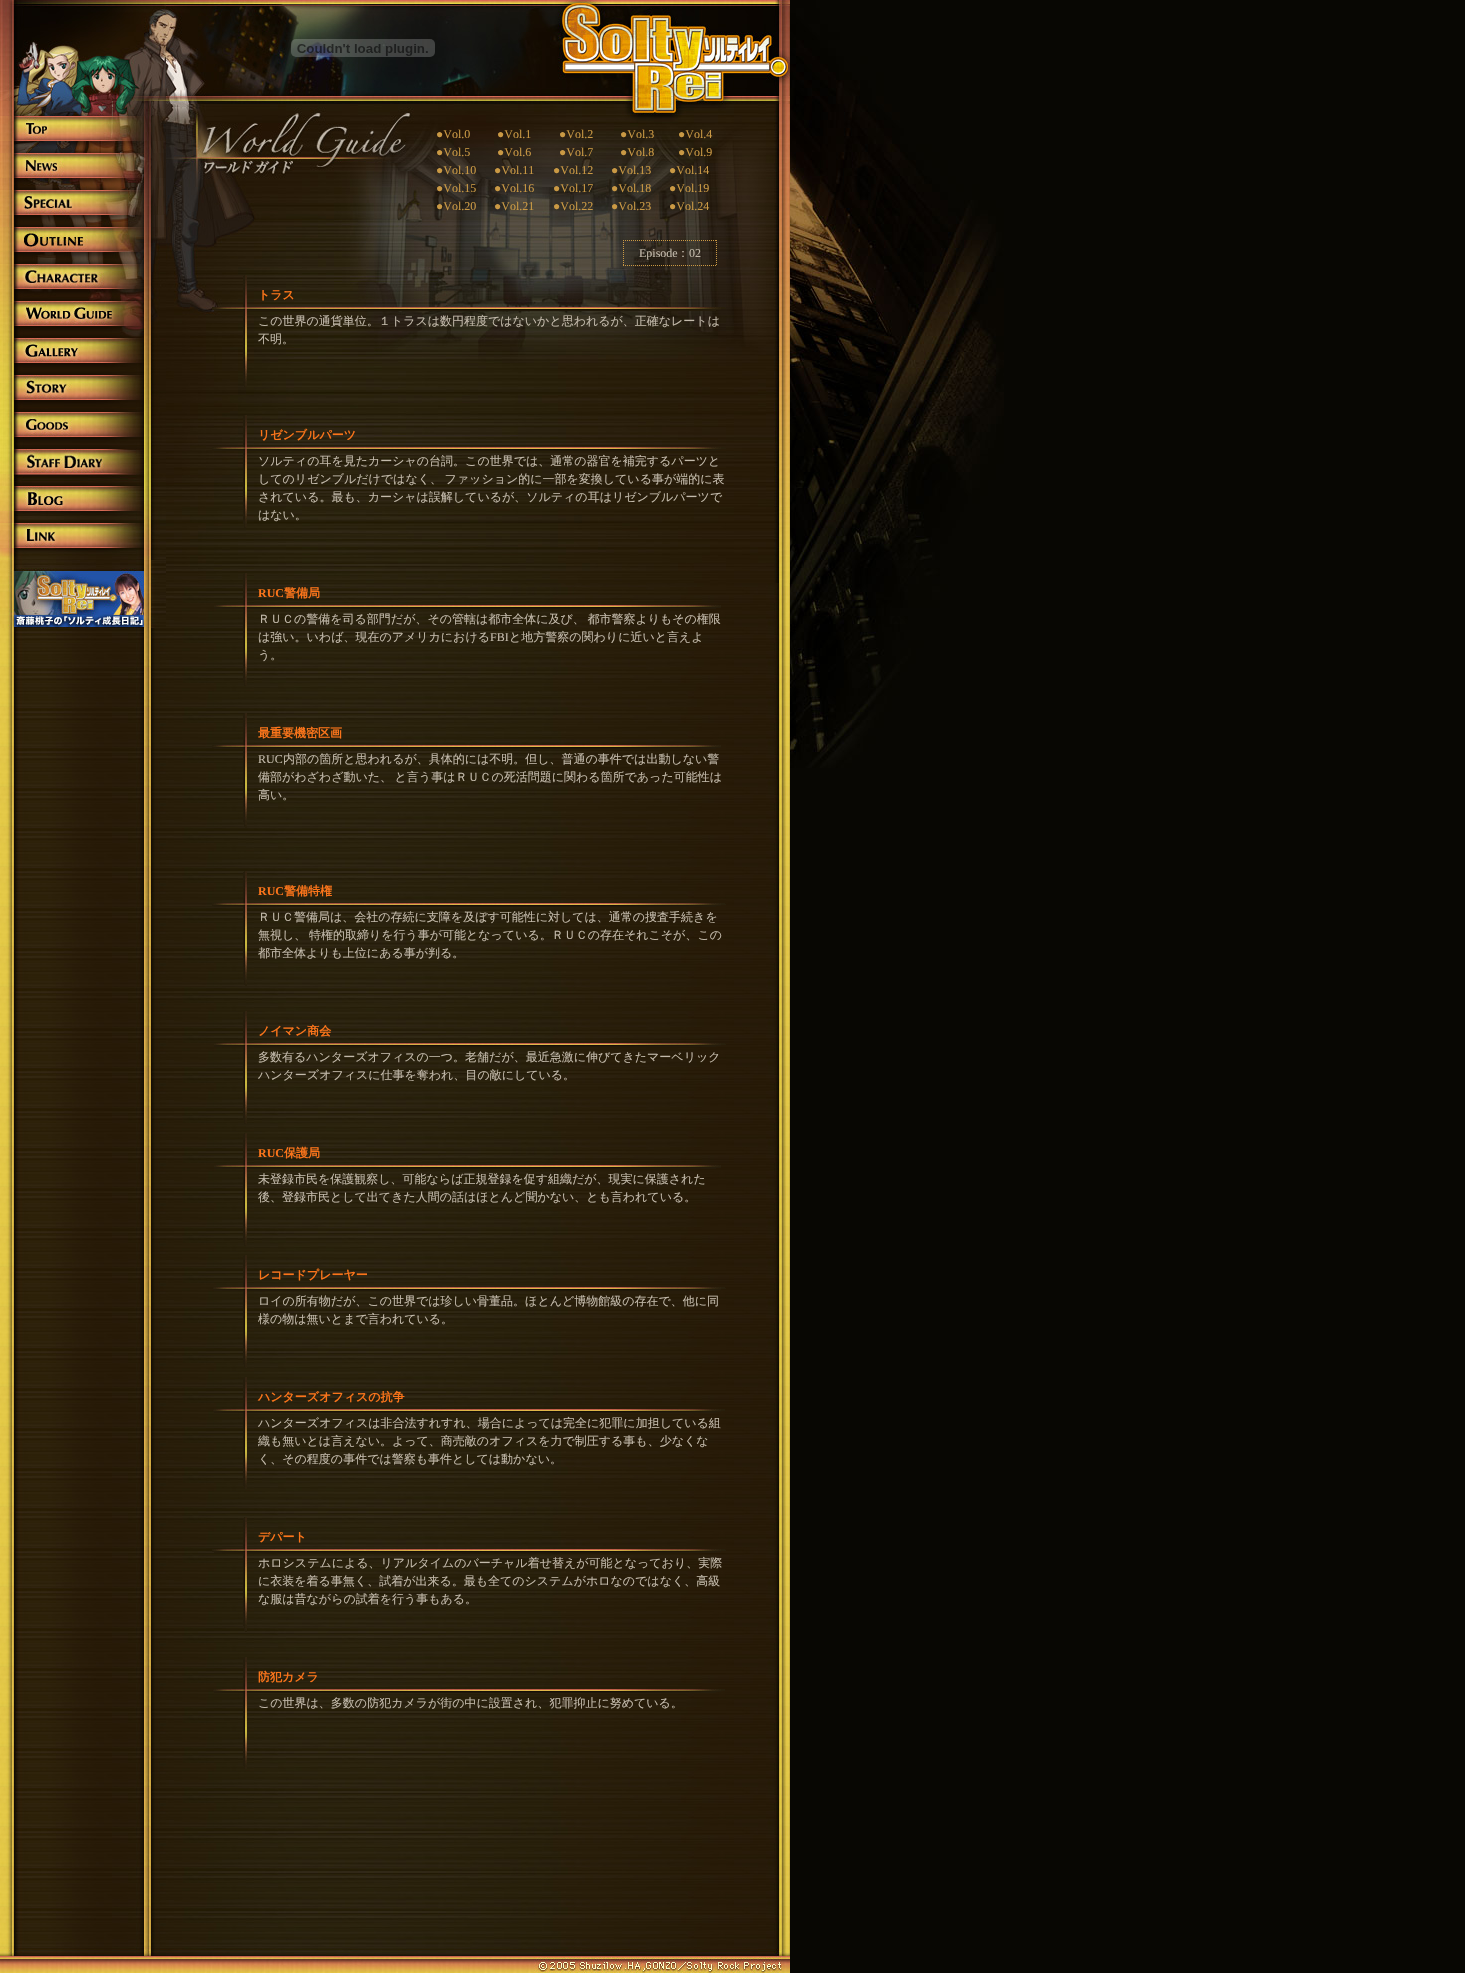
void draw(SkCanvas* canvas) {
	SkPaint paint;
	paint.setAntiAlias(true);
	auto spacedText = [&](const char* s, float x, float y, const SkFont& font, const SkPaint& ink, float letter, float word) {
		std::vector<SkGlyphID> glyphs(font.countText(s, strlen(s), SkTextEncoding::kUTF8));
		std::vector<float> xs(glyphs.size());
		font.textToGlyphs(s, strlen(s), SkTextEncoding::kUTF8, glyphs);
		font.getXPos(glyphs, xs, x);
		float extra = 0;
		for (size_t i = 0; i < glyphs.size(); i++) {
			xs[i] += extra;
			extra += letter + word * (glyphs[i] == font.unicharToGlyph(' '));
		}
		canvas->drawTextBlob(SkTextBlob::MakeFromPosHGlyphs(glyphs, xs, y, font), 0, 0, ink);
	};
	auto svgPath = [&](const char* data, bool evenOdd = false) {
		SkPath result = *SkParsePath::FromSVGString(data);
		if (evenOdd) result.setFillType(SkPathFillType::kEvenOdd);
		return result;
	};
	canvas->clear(0xff080703);
	canvas->drawImageRect(SkImages::DeferredFromEncodedData(SkData::MakeFromFileName("img1.png")), SkRect::MakeXYWH(790, 0, 214, 768), SkSamplingOptions());
	canvas->drawImageRect(SkImages::DeferredFromEncodedData(SkData::MakeFromFileName("img2.png")), SkRect::MakeXYWH(0, 628, 166, 1321), SkSamplingOptions());
	canvas->drawImageRect(SkImages::DeferredFromEncodedData(SkData::MakeFromFileName("img3.png")), SkRect::MakeXYWH(0, 0, 166, 101), SkSamplingOptions());
	canvas->drawImageRect(SkImages::DeferredFromEncodedData(SkData::MakeFromFileName("img4.png")), SkRect::MakeXYWH(0, 101, 166, 15), SkSamplingOptions());
	canvas->drawImageRect(SkImages::DeferredFromEncodedData(SkData::MakeFromFileName("img5.png")), SkRect::MakeXYWH(0, 116, 166, 25), SkSamplingOptions());
	canvas->drawImageRect(SkImages::DeferredFromEncodedData(SkData::MakeFromFileName("img6.png")), SkRect::MakeXYWH(0, 141, 166, 12), SkSamplingOptions());
	canvas->drawImageRect(SkImages::DeferredFromEncodedData(SkData::MakeFromFileName("img7.png")), SkRect::MakeXYWH(0, 153, 166, 25), SkSamplingOptions());
	canvas->drawImageRect(SkImages::DeferredFromEncodedData(SkData::MakeFromFileName("img8.png")), SkRect::MakeXYWH(0, 178, 166, 12), SkSamplingOptions());
	canvas->drawImageRect(SkImages::DeferredFromEncodedData(SkData::MakeFromFileName("img9.png")), SkRect::MakeXYWH(0, 190, 166, 25), SkSamplingOptions());
	canvas->drawImageRect(SkImages::DeferredFromEncodedData(SkData::MakeFromFileName("img10.png")), SkRect::MakeXYWH(0, 215, 166, 12), SkSamplingOptions());
	canvas->drawImageRect(SkImages::DeferredFromEncodedData(SkData::MakeFromFileName("img11.png")), SkRect::MakeXYWH(0, 227, 166, 25), SkSamplingOptions());
	canvas->drawImageRect(SkImages::DeferredFromEncodedData(SkData::MakeFromFileName("img12.png")), SkRect::MakeXYWH(0, 252, 166, 12), SkSamplingOptions());
	canvas->drawImageRect(SkImages::DeferredFromEncodedData(SkData::MakeFromFileName("img13.png")), SkRect::MakeXYWH(0, 264, 166, 25), SkSamplingOptions());
	canvas->drawImageRect(SkImages::DeferredFromEncodedData(SkData::MakeFromFileName("img14.png")), SkRect::MakeXYWH(0, 289, 166, 12), SkSamplingOptions());
	canvas->drawImageRect(SkImages::DeferredFromEncodedData(SkData::MakeFromFileName("img15.png")), SkRect::MakeXYWH(0, 301, 166, 25), SkSamplingOptions());
	canvas->drawImageRect(SkImages::DeferredFromEncodedData(SkData::MakeFromFileName("img16.png")), SkRect::MakeXYWH(0, 326, 166, 12), SkSamplingOptions());
	canvas->drawImageRect(SkImages::DeferredFromEncodedData(SkData::MakeFromFileName("img17.png")), SkRect::MakeXYWH(0, 338, 166, 25), SkSamplingOptions());
	canvas->drawImageRect(SkImages::DeferredFromEncodedData(SkData::MakeFromFileName("img18.png")), SkRect::MakeXYWH(0, 363, 166, 12), SkSamplingOptions());
	canvas->drawImageRect(SkImages::DeferredFromEncodedData(SkData::MakeFromFileName("img19.png")), SkRect::MakeXYWH(0, 375, 166, 25), SkSamplingOptions());
	canvas->drawImageRect(SkImages::DeferredFromEncodedData(SkData::MakeFromFileName("img20.png")), SkRect::MakeXYWH(0, 400, 166, 12), SkSamplingOptions());
	canvas->drawImageRect(SkImages::DeferredFromEncodedData(SkData::MakeFromFileName("img21.png")), SkRect::MakeXYWH(0, 412, 166, 25), SkSamplingOptions());
	canvas->drawImageRect(SkImages::DeferredFromEncodedData(SkData::MakeFromFileName("img22.png")), SkRect::MakeXYWH(0, 437, 166, 12), SkSamplingOptions());
	canvas->drawImageRect(SkImages::DeferredFromEncodedData(SkData::MakeFromFileName("img23.png")), SkRect::MakeXYWH(0, 449, 166, 25), SkSamplingOptions());
	canvas->drawImageRect(SkImages::DeferredFromEncodedData(SkData::MakeFromFileName("img24.png")), SkRect::MakeXYWH(0, 474, 166, 12), SkSamplingOptions());
	canvas->drawImageRect(SkImages::DeferredFromEncodedData(SkData::MakeFromFileName("img25.png")), SkRect::MakeXYWH(0, 486, 166, 25), SkSamplingOptions());
	canvas->drawImageRect(SkImages::DeferredFromEncodedData(SkData::MakeFromFileName("img26.png")), SkRect::MakeXYWH(0, 511, 166, 12), SkSamplingOptions());
	canvas->drawImageRect(SkImages::DeferredFromEncodedData(SkData::MakeFromFileName("img27.png")), SkRect::MakeXYWH(0, 523, 166, 25), SkSamplingOptions());
	canvas->drawImageRect(SkImages::DeferredFromEncodedData(SkData::MakeFromFileName("img28.png")), SkRect::MakeXYWH(0, 548, 166, 12), SkSamplingOptions());
	canvas->drawImageRect(SkImages::DeferredFromEncodedData(SkData::MakeFromFileName("img29.png")), SkRect::MakeXYWH(0, 560, 166, 68), SkSamplingOptions());
	canvas->drawImageRect(SkImages::DeferredFromEncodedData(SkData::MakeFromFileName("img30.png")), SkRect::MakeXYWH(0, 1949, 166, 24), SkSamplingOptions());
	canvas->drawImageRect(SkImages::DeferredFromEncodedData(SkData::MakeFromFileName("img31.png")), SkRect::MakeXYWH(166, 583, 624, 1366), SkSamplingOptions());
	canvas->drawImageRect(SkImages::DeferredFromEncodedData(SkData::MakeFromFileName("img32.png")), SkRect::MakeXYWH(166, 0, 624, 107), SkSamplingOptions());
	canvas->drawImageRect(SkImages::DeferredFromEncodedData(SkData::MakeFromFileName("img33.png")), SkRect::MakeXYWH(291, 39, 144, 18), SkSamplingOptions());
	canvas->drawImageRect(SkImages::DeferredFromEncodedData(SkData::MakeFromFileName("img34.png")), SkRect::MakeXYWH(166, 107, 624, 476), SkSamplingOptions());
	SkFont f1(fontMgr->matchFamilyStyle("Liberation Serif", SkFontStyle::Normal()), 12);
	f1.setSubpixel(true);
	paint.setColor(0xffca9944);
	canvas->drawString("●Vol.0", 436, 138, f1, paint);
	canvas->drawString("●Vol.1", 497, 138, f1, paint);
	canvas->drawString("●Vol.2", 559, 138, f1, paint);
	canvas->drawString("●Vol.3", 620, 138, f1, paint);
	canvas->drawString("●Vol.4", 678, 138, f1, paint);
	canvas->drawString("●Vol.5", 436, 156, f1, paint);
	canvas->drawString("●Vol.6", 497, 156, f1, paint);
	canvas->drawString("●Vol.7", 559, 156, f1, paint);
	canvas->drawString("●Vol.8", 620, 156, f1, paint);
	canvas->drawString("●Vol.9", 678, 156, f1, paint);
	canvas->drawString("●Vol.10", 436, 174, f1, paint);
	canvas->drawString("●Vol.11", 494, 174, f1, paint);
	canvas->drawString("●Vol.12", 553, 174, f1, paint);
	canvas->drawString("●Vol.13", 611, 174, f1, paint);
	canvas->drawString("●Vol.14", 669, 174, f1, paint);
	canvas->drawString("●Vol.15", 436, 192, f1, paint);
	canvas->drawString("●Vol.16", 494, 192, f1, paint);
	canvas->drawString("●Vol.17", 553, 192, f1, paint);
	canvas->drawString("●Vol.18", 611, 192, f1, paint);
	canvas->drawString("●Vol.19", 669, 192, f1, paint);
	canvas->drawString("●Vol.20", 436, 210, f1, paint);
	canvas->drawString("●Vol.21", 494, 210, f1, paint);
	canvas->drawString("●Vol.22", 553, 210, f1, paint);
	canvas->drawString("●Vol.23", 611, 210, f1, paint);
	canvas->drawString("●Vol.24", 669, 210, f1, paint);
	paint.setStroke(true);
	paint.setStrokeWidth(1);
	paint.setPathEffect(SkDashPathEffect::Make({{1, 1}}, 0));
	canvas->drawPath(svgPath("M623 240.5H717"), paint);
	paint.setPathEffect(nullptr);
	paint.setPathEffect(SkDashPathEffect::Make({{1, 1}}, 0));
	canvas->drawPath(svgPath("M716.5 240V266"), paint);
	paint.setPathEffect(nullptr);
	paint.setPathEffect(SkDashPathEffect::Make({{1, 1}}, 0));
	canvas->drawPath(svgPath("M623 265.5H717"), paint);
	paint.setPathEffect(nullptr);
	paint.setPathEffect(SkDashPathEffect::Make({{1, 1}}, 0));
	canvas->drawPath(svgPath("M623.5 240V266"), paint);
	paint.setPathEffect(nullptr);
	paint.setStroke(false);
	paint.setColor(0xffc3baab);
	canvas->drawString("Episode", 639, 257, f1, paint);
	SkFont f2(fontMgr->matchFamilyStyle("WenQuanYi Zen Hei", SkFontStyle(500, SkFontStyle::kNormal_Width, SkFontStyle::kUpright_Slant)), 12);
	f2.setSubpixel(true);
	canvas->drawString("：", 677, 257, f2, paint);
	canvas->drawString("02", 689, 257, f1, paint);
	canvas->drawImageRect(SkImages::DeferredFromEncodedData(SkData::MakeFromFileName("img35.png")), SkRect::MakeXYWH(212, 275, 514, 112), SkSamplingOptions());
	SkFont f3(fontMgr->matchFamilyStyle("WenQuanYi Zen Hei", SkFontStyle::Bold()), 12);
	f3.setSubpixel(true);
	paint.setColor(0xfffa741a);
	canvas->drawString("トラス", 258, 299, f3, paint);
	paint.setColor(0xffc3baab);
	canvas->drawString("この世界の通貨単位。１トラスは数円程度ではないかと思われるが、正確なレートは", 258, 325, f2, paint);
	canvas->drawString("不明。", 258, 343, f2, paint);
	canvas->drawImageRect(SkImages::DeferredFromEncodedData(SkData::MakeFromFileName("img36.png")), SkRect::MakeXYWH(212, 415, 514, 113), SkSamplingOptions());
	paint.setColor(0xfffa741a);
	canvas->drawString("リゼンブルパーツ", 258, 439, f3, paint);
	paint.setColor(0xffc3baab);
	canvas->drawString("ソルティの耳を見たカーシャの台詞。この世界では、通常の器官を補完するパーツと", 258, 465, f2, paint);
	spacedText("してのリゼンブルだけではなく、 ファッション的に一部を変換している事が端的に表", 258, 483, f2, paint, 0, -1);
	canvas->drawString("されている。最も、カーシャは誤解しているが、ソルティの耳はリゼンブルパーツで", 258, 501, f2, paint);
	canvas->drawString("はない。", 258, 519, f2, paint);
	canvas->drawImageRect(SkImages::DeferredFromEncodedData(SkData::MakeFromFileName("img37.png")), SkRect::MakeXYWH(214, 573, 507, 113), SkSamplingOptions());
	SkFont f4(fontMgr->matchFamilyStyle("Liberation Serif", SkFontStyle::Bold()), 12);
	f4.setSubpixel(true);
	paint.setColor(0xfffa741a);
	canvas->drawString("RUC", 258, 597, f4, paint);
	canvas->drawString("警備局", 284, 597, f3, paint);
	paint.setColor(0xffc3baab);
	spacedText("ＲＵＣの警備を司る部門だが、その管轄は都市全体に及び、 都市警察よりもその権限", 258, 623, f2, paint, 0, -1);
	canvas->drawString("は強い。いわば、現在のアメリカにおける", 258, 641, f2, paint);
	canvas->drawString("FBI", 490, 641, f1, paint);
	canvas->drawString("と地方警察の関わりに近いと言えよ", 509, 641, f2, paint);
	canvas->drawString("う。", 258, 659, f2, paint);
	canvas->drawImageRect(SkImages::DeferredFromEncodedData(SkData::MakeFromFileName("img38.png")), SkRect::MakeXYWH(212, 713, 509, 115), SkSamplingOptions());
	paint.setColor(0xfffa741a);
	canvas->drawString("最重要機密区画", 258, 737, f3, paint);
	paint.setColor(0xffc3baab);
	canvas->drawString("RUC", 258, 763, f1, paint);
	canvas->drawString("内部の箇所と思われるが、具体的には不明。但し、普通の事件では出動しない警", 283, 763, f2, paint);
	spacedText("備部がわざわざ動いた、 と言う事はＲＵＣの死活問題に関わる箇所であった可能性は", 258, 781, f2, paint, 0, -1);
	canvas->drawString("高い。", 258, 799, f2, paint);
	canvas->drawImageRect(SkImages::DeferredFromEncodedData(SkData::MakeFromFileName("img39.png")), SkRect::MakeXYWH(212, 871, 514, 115), SkSamplingOptions());
	paint.setColor(0xfffa741a);
	canvas->drawString("RUC", 258, 895, f4, paint);
	canvas->drawString("警備特権", 284, 895, f3, paint);
	paint.setColor(0xffc3baab);
	canvas->drawString("ＲＵＣ警備局は、会社の存続に支障を及ぼす可能性に対しては、通常の捜査手続きを", 258, 921, f2, paint);
	spacedText("無視し、 特権的取締りを行う事が可能となっている。ＲＵＣの存在それこそが、この", 258, 939, f2, paint, 0, -1);
	canvas->drawString("都市全体よりも上位にある事が判る。", 258, 957, f2, paint);
	canvas->drawImageRect(SkImages::DeferredFromEncodedData(SkData::MakeFromFileName("img40.png")), SkRect::MakeXYWH(214, 1011, 512, 113), SkSamplingOptions());
	paint.setColor(0xfffa741a);
	canvas->drawString("ノイマン商会", 258, 1035, f3, paint);
	paint.setColor(0xffc3baab);
	canvas->drawString("多数有るハンターズオフィスの一つ。老舗だが、最近急激に伸びてきたマーベリック", 258, 1061, f2, paint);
	canvas->drawString("ハンターズオフィスに仕事を奪われ、目の敵にしている。", 258, 1079, f2, paint);
	canvas->drawImageRect(SkImages::DeferredFromEncodedData(SkData::MakeFromFileName("img41.png")), SkRect::MakeXYWH(214, 1133, 507, 113), SkSamplingOptions());
	paint.setColor(0xfffa741a);
	canvas->drawString("RUC", 258, 1157, f4, paint);
	canvas->drawString("保護局", 284, 1157, f3, paint);
	paint.setColor(0xffc3baab);
	canvas->drawString("未登録市民を保護観察し、可能ならば正規登録を促す組織だが、現実に保護された", 258, 1183, f2, paint);
	canvas->drawString("後、登録市民として出てきた人間の話はほとんど聞かない、とも言われている。", 258, 1201, f2, paint);
	canvas->drawImageRect(SkImages::DeferredFromEncodedData(SkData::MakeFromFileName("img42.png")), SkRect::MakeXYWH(213, 1255, 513, 113), SkSamplingOptions());
	paint.setColor(0xfffa741a);
	canvas->drawString("レコードプレーヤー", 258, 1279, f3, paint);
	paint.setColor(0xffc3baab);
	canvas->drawString("ロイの所有物だが、この世界では珍しい骨董品。ほとんど博物館級の存在で、他に同", 258, 1305, f2, paint);
	canvas->drawString("様の物は無いとまで言われている。", 258, 1323, f2, paint);
	canvas->drawImageRect(SkImages::DeferredFromEncodedData(SkData::MakeFromFileName("img43.png")), SkRect::MakeXYWH(213, 1377, 512, 112), SkSamplingOptions());
	paint.setColor(0xfffa741a);
	canvas->drawString("ハンターズオフィスの抗争", 258, 1401, f3, paint);
	paint.setColor(0xffc3baab);
	canvas->drawString("ハンターズオフィスは非合法すれすれ、場合によっては完全に犯罪に加担している組", 258, 1427, f2, paint);
	canvas->drawString("織も無いとは言えない。よって、商売敵のオフィスを力で制圧する事も、少なくな", 258, 1445, f2, paint);
	canvas->drawString("く、その程度の事件では警察も事件としては動かない。", 258, 1463, f2, paint);
	canvas->drawImageRect(SkImages::DeferredFromEncodedData(SkData::MakeFromFileName("img44.png")), SkRect::MakeXYWH(212, 1517, 514, 115), SkSamplingOptions());
	paint.setColor(0xfffa741a);
	canvas->drawString("デパート", 258, 1541, f3, paint);
	paint.setColor(0xffc3baab);
	canvas->drawString("ホロシステムによる、リアルタイムのバーチャル着せ替えが可能となっており、実際", 258, 1567, f2, paint);
	canvas->drawString("に衣装を着る事無く、試着が出来る。最も全てのシステムがホロなのではなく、高級", 258, 1585, f2, paint);
	canvas->drawString("な服は昔ながらの試着を行う事もある。", 258, 1603, f2, paint);
	canvas->drawImageRect(SkImages::DeferredFromEncodedData(SkData::MakeFromFileName("img43.png")), SkRect::MakeXYWH(213, 1657, 512, 112), SkSamplingOptions());
	paint.setColor(0xfffa741a);
	canvas->drawString("防犯カメラ", 258, 1681, f3, paint);
	paint.setColor(0xffc3baab);
	canvas->drawString("この世界は、多数の防犯カメラが街の中に設置され、犯罪抑止に努めている。", 258, 1707, f2, paint);
	canvas->drawImageRect(SkImages::DeferredFromEncodedData(SkData::MakeFromFileName("img45.png")), SkRect::MakeXYWH(166, 1949, 624, 24), SkSamplingOptions());
}
